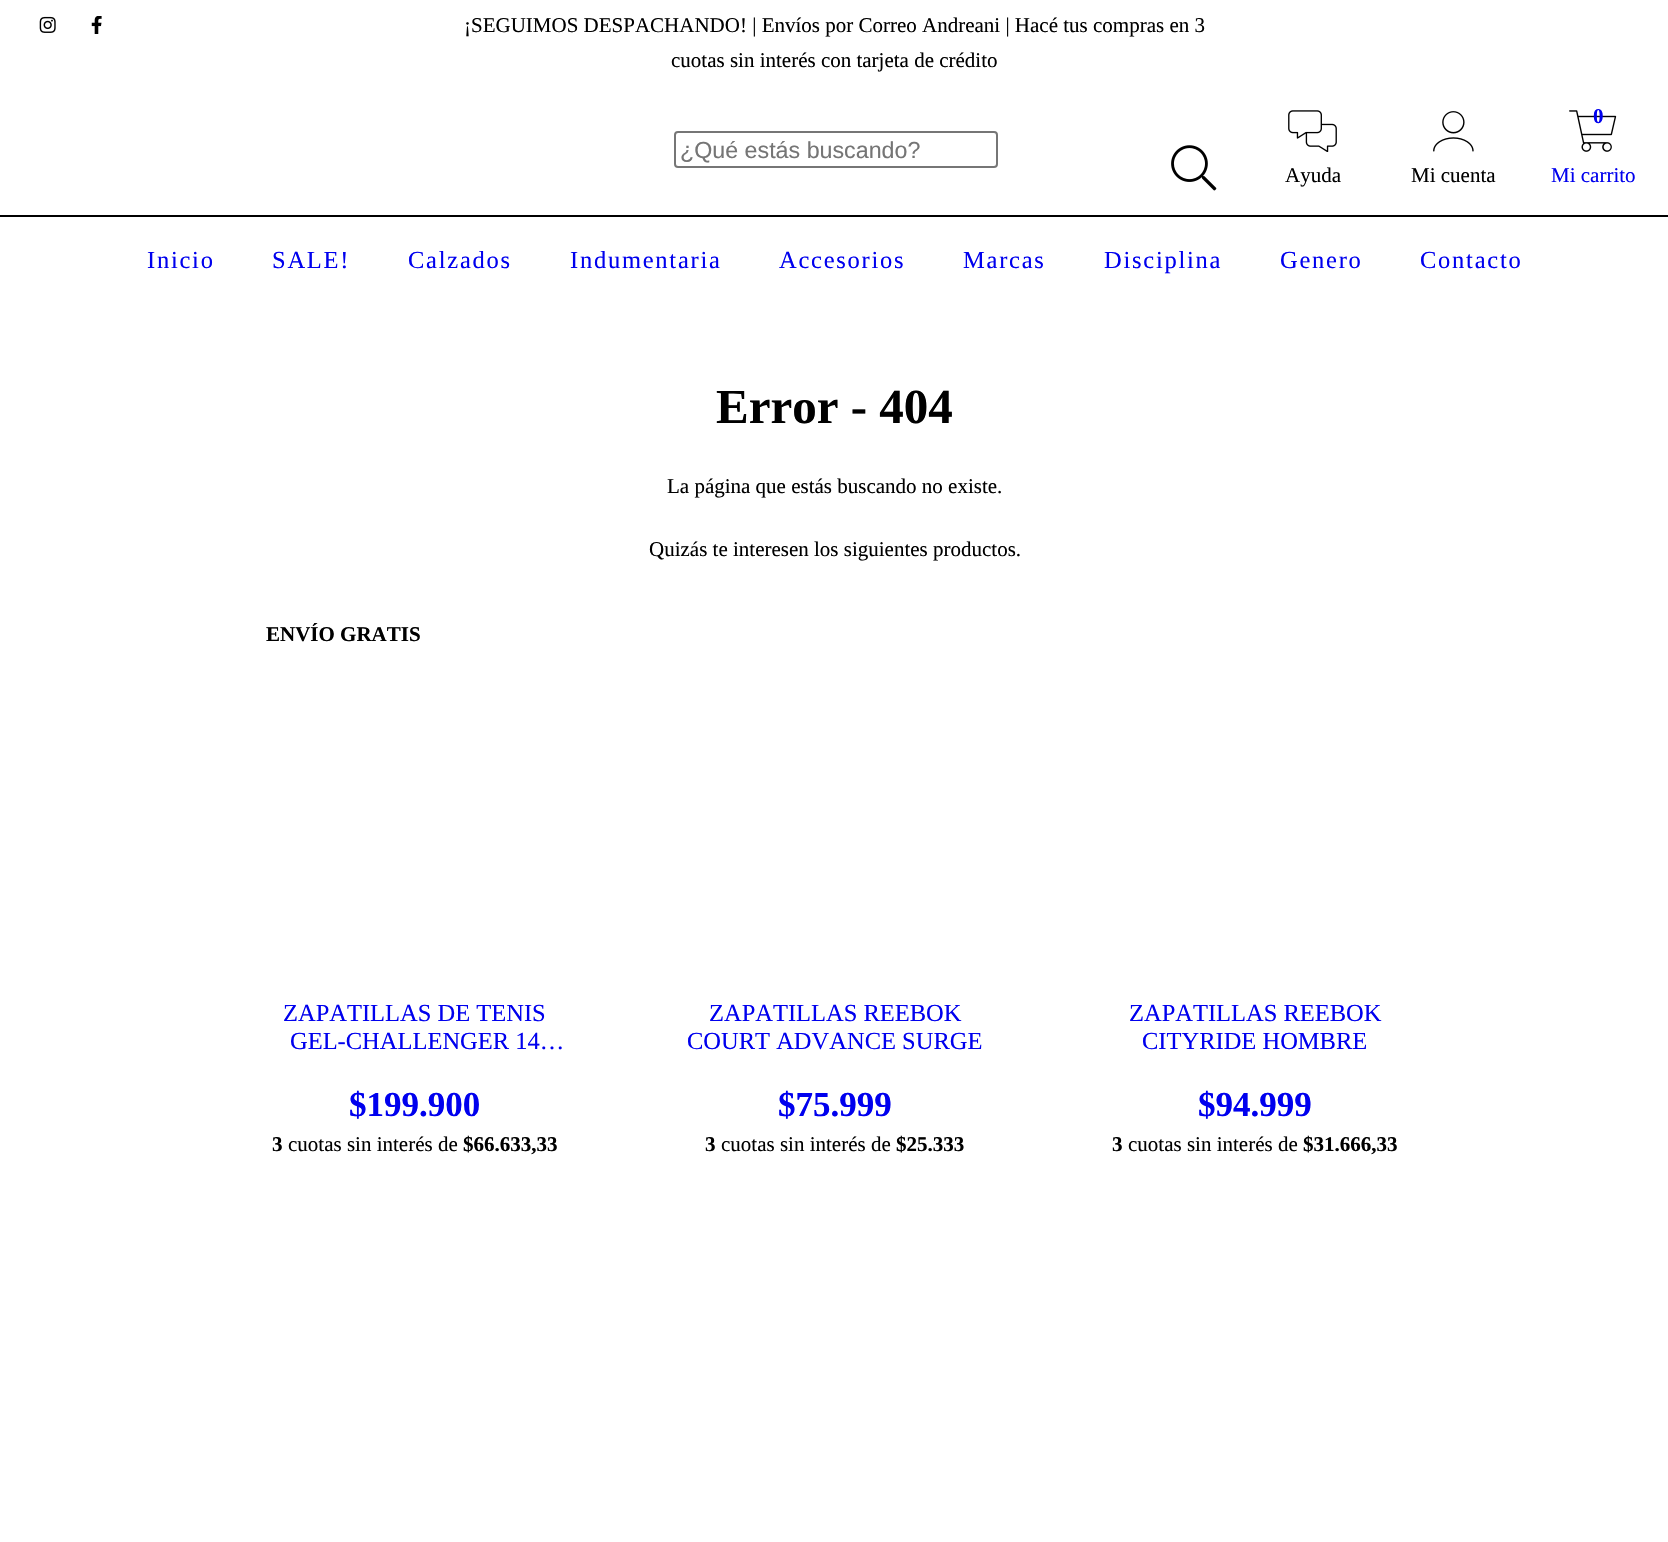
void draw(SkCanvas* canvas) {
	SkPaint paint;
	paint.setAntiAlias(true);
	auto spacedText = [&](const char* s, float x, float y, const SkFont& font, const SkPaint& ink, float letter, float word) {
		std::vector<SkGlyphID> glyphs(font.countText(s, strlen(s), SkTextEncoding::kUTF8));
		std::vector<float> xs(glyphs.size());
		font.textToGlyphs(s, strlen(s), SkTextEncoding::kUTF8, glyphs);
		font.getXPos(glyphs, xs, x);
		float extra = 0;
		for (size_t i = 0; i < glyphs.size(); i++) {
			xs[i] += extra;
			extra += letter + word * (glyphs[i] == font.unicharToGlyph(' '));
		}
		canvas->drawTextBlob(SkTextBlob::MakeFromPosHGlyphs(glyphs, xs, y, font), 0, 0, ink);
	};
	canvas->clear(0xffffffff);
	canvas->drawImageRect(SkImages::DeferredFromEncodedData(SkData::MakeFromFileName("img1.png")), SkRect::MakeXYWH(39, 16, 17, 17), SkSamplingOptions());
	canvas->drawImageRect(SkImages::DeferredFromEncodedData(SkData::MakeFromFileName("img2.png")), SkRect::MakeXYWH(91, 16, 11, 18), SkSamplingOptions());
	SkFont f1(fontMgr->matchFamilyStyle("Liberation Serif", SkFontStyle::Normal()), 21);
	f1.setSubpixel(true);
	paint.setColor(0xff000000);
	canvas->drawString("¡SEGUIMOS DESPACHANDO! | Envíos por Correo Andreani | Hacé tus compras en 3", 464, 32, f1, paint);
	canvas->drawString("cuotas sin interés con tarjeta de crédito", 671, 67, f1, paint);
	paint.setStroke(true);
	paint.setStrokeWidth(2);
	paint.setColor(0xff767676);
	canvas->drawRoundRect(SkRect::MakeXYWH(675, 132, 322, 35), 3, 3, paint);
	SkFont f2(fontMgr->matchFamilyStyle("Liberation Sans", SkFontStyle::Normal()), 23.25);
	f2.setSubpixel(true);
	paint.setStroke(false);
	paint.setColor(0xff757575);
	canvas->drawString("¿Qué estás buscando?", 680, 158, f2, paint);
	canvas->drawImageRect(SkImages::DeferredFromEncodedData(SkData::MakeFromFileName("img3.png")), SkRect::MakeXYWH(1171, 145, 46, 46), SkSamplingOptions());
	canvas->drawImageRect(SkImages::DeferredFromEncodedData(SkData::MakeFromFileName("img4.png")), SkRect::MakeXYWH(1288, 110, 49, 42), SkSamplingOptions());
	paint.setColor(0xff000000);
	canvas->drawString("Ayuda", 1285, 182, f1, paint);
	canvas->drawImageRect(SkImages::DeferredFromEncodedData(SkData::MakeFromFileName("img5.png")), SkRect::MakeXYWH(1433, 111, 41, 41), SkSamplingOptions());
	canvas->drawString("Mi cuenta", 1411, 182, f1, paint);
	canvas->drawImageRect(SkImages::DeferredFromEncodedData(SkData::MakeFromFileName("img6.png")), SkRect::MakeXYWH(1569, 110, 48, 42), SkSamplingOptions());
	SkFont f3(fontMgr->matchFamilyStyle("Liberation Serif", SkFontStyle::Bold()), 21);
	f3.setSubpixel(true);
	paint.setColor(0xff0000ee);
	canvas->drawString("0", 1593, 123, f3, paint);
	canvas->drawString("Mi carrito", 1551, 182, f1, paint);
	paint.setColor(0xff000000);
	canvas->drawRect(SkRect::MakeXYWH(0, 215, 1668, 2), paint);
	SkFont f4(fontMgr->matchFamilyStyle("Liberation Serif", SkFontStyle::Normal()), 24.5);
	f4.setSubpixel(true);
	paint.setColor(0xff0000ee);
	spacedText("Inicio", 147, 268, f4, paint, 1.75, 0);
	spacedText("SALE!", 272, 268, f4, paint, 1.75, 0);
	spacedText("Calzados", 408, 268, f4, paint, 1.75, 0);
	spacedText("Indumentaria", 570, 268, f4, paint, 1.75, 0);
	spacedText("Accesorios", 779, 268, f4, paint, 1.75, 0);
	spacedText("Marcas", 963, 268, f4, paint, 1.75, 0);
	spacedText("Disciplina", 1104, 268, f4, paint, 1.75, 0);
	spacedText("Genero", 1280, 268, f4, paint, 1.75, 0);
	spacedText("Contacto", 1420, 268, f4, paint, 1.75, 0);
	SkFont f5(fontMgr->matchFamilyStyle("Liberation Serif", SkFontStyle::Bold()), 49);
	f5.setSubpixel(true);
	paint.setColor(0xff000000);
	canvas->drawString("Error - 404", 716, 423, f5, paint);
	canvas->drawString("La página que estás buscando no existe.", 667, 493, f1, paint);
	canvas->drawString("Quizás te interesen los siguientes productos.", 649, 556, f1, paint);
	canvas->drawString("ENVÍO GRATIS", 266, 641, f3, paint);
	paint.setColor(0xff0000ee);
	canvas->drawString("ZAPATILLAS DE TENIS", 283, 1021, f4, paint);
	canvas->drawString("GEL-CHALLENGER 14…", 290, 1049, f4, paint);
	SkFont f6(fontMgr->matchFamilyStyle("Liberation Serif", SkFontStyle::Bold()), 35);
	f6.setSubpixel(true);
	canvas->drawString("$199.900", 349, 1116, f6, paint);
	paint.setColor(0xff000000);
	canvas->drawString("3", 272, 1151, f3, paint);
	canvas->drawString("cuotas sin interés de", 288, 1151, f1, paint);
	canvas->drawString("$66.633,33", 463, 1151, f3, paint);
	paint.setColor(0xff0000ee);
	canvas->drawString("ZAPATILLAS REEBOK", 709, 1021, f4, paint);
	canvas->drawString("COURT ADVANCE SURGE", 687, 1049, f4, paint);
	canvas->drawString("$75.999", 778, 1116, f6, paint);
	paint.setColor(0xff000000);
	canvas->drawString("3", 705, 1151, f3, paint);
	canvas->drawString("cuotas sin interés de", 721, 1151, f1, paint);
	canvas->drawString("$25.333", 896, 1151, f3, paint);
	paint.setColor(0xff0000ee);
	canvas->drawString("ZAPATILLAS REEBOK", 1129, 1021, f4, paint);
	canvas->drawString("CITYRIDE HOMBRE", 1142, 1049, f4, paint);
	canvas->drawString("$94.999", 1198, 1116, f6, paint);
	paint.setColor(0xff000000);
	canvas->drawString("3", 1112, 1151, f3, paint);
	canvas->drawString("cuotas sin interés de", 1128, 1151, f1, paint);
	canvas->drawString("$31.666,33", 1303, 1151, f3, paint);
}
